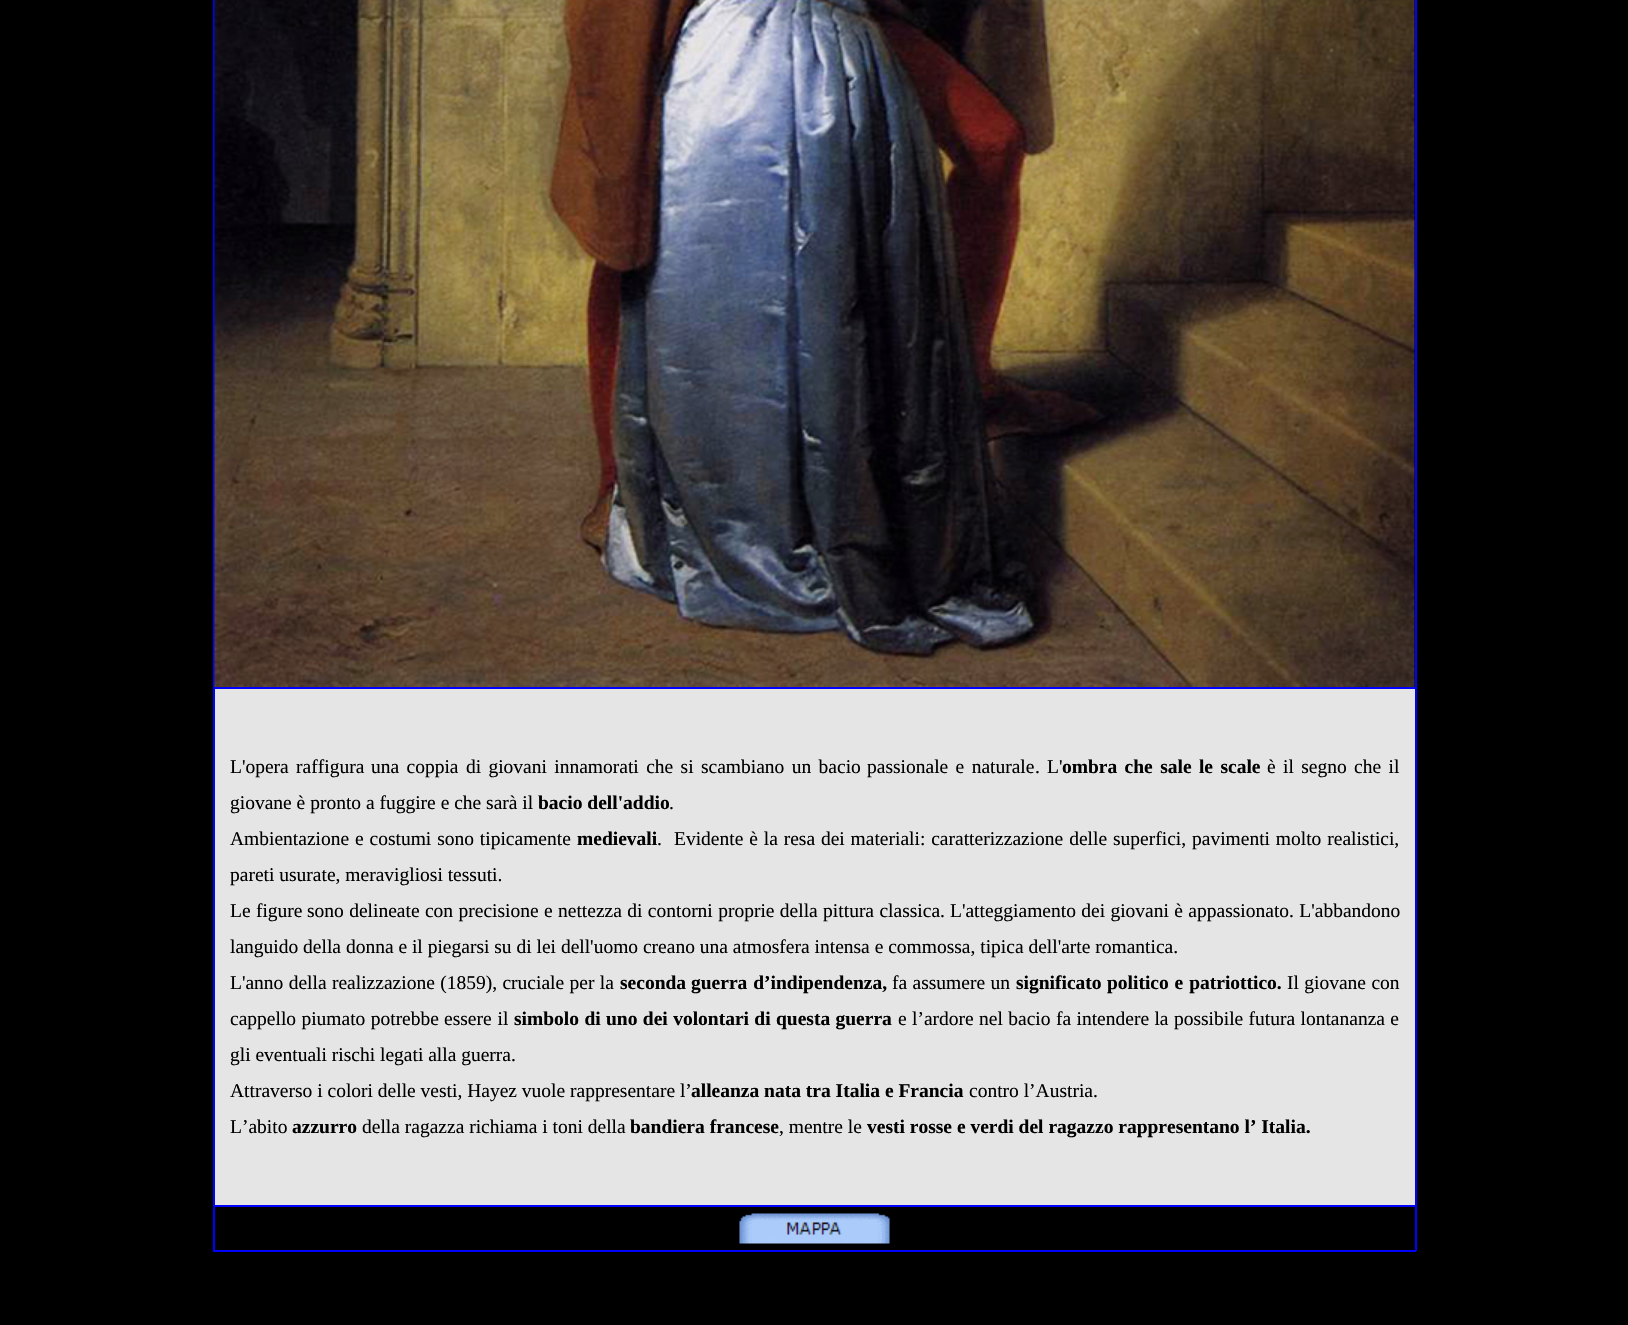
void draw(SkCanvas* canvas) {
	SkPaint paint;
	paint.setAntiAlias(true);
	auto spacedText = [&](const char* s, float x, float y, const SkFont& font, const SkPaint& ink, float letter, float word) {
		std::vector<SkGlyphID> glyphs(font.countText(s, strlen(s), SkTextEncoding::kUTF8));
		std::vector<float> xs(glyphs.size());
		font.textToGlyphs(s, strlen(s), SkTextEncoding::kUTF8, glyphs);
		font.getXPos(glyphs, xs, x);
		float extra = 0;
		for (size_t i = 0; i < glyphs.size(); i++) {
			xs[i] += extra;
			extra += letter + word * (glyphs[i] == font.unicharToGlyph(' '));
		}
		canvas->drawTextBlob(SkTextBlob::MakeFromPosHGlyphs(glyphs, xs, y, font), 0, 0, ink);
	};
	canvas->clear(0xff000000);
	paint.setColor(0xff0000ff);
	canvas->drawRect(SkRect::MakeXYWH(1415, 0, 2, 1251), paint);
	canvas->drawRect(SkRect::MakeXYWH(213, 1250, 1203, 2), paint);
	canvas->drawRect(SkRect::MakeXYWH(213, 0, 2, 1251), paint);
	canvas->drawImageRect(SkImages::DeferredFromEncodedData(SkData::MakeFromFileName("img1.png")), SkRect::MakeXYWH(214, 0, 1201, 687), SkSamplingOptions());
	paint.setColor(0xffe5e5e5);
	canvas->drawRect(SkRect::MakeXYWH(215, 689, 1200, 516), paint);
	paint.setColor(0xff0000ff);
	canvas->drawRect(SkRect::MakeXYWH(213, 687, 1203, 2), paint);
	SkFont f1(fontMgr->matchFamilyStyle("Liberation Serif", SkFontStyle::Normal()), 19.5);
	f1.setSubpixel(true);
	paint.setColor(0xff000000);
	spacedText("L'opera raffigura", 230, 773, f1, paint, 0, 2.5);
	spacedText("una coppia di giovani innamorati che si scambiano un bacio", 371, 773, f1, paint, 0, 2.5);
	spacedText("passionale e naturale", 867, 773, f1, paint, 0, 2.5);
	canvas->drawString(".", 1035, 773, f1, paint);
	canvas->drawString("L'", 1047, 773, f1, paint);
	SkFont f2(fontMgr->matchFamilyStyle("Liberation Serif", SkFontStyle::Bold()), 19.5);
	f2.setSubpixel(true);
	spacedText("ombra che sale le scale", 1062, 773, f2, paint, 0, 2.5);
	spacedText("è il segno che il", 1267, 773, f1, paint, 0, 2.5);
	canvas->drawString("giovane è pronto a fuggire e che sarà il", 230, 809, f1, paint);
	canvas->drawString("bacio dell'addio", 538, 809, f2, paint);
	canvas->drawString(".", 669, 809, f1, paint);
	spacedText("Ambientazione e costumi sono tipicamente", 230, 845, f1, paint, 0, 1);
	canvas->drawString("medievali", 577, 845, f2, paint);
	canvas->drawString(".", 657, 845, f1, paint);
	spacedText("Evidente è la resa dei materiali: caratterizzazione delle", 674, 845, f1, paint, 0, 1);
	canvas->drawString("superfici,", 1113, 845, f1, paint);
	spacedText("pavimenti molto realistici,", 1192, 845, f1, paint, 0, 1);
	canvas->drawString("pareti usurate, meravigliosi tessuti.", 230, 881, f1, paint);
	spacedText("Le figure", 230, 917, f1, paint, 0, 0.5);
	spacedText("sono delineate con precisione e nettezza di contorni proprie della pittura classica.", 307, 917, f1, paint, 0, 0.5);
	spacedText("L'atteggiamento dei giovani è appassionato. L'abbandono", 950, 917, f1, paint, 0, 0.5);
	canvas->drawString("languido della donna e il piegarsi su di lei dell'uomo creano una atmosfera intensa e commossa, tipica dell'arte romantica.", 230, 953, f1, paint);
	spacedText("L'anno della realizzazione (1859), cruciale per la", 230, 989, f1, paint, 0, 0.5);
	canvas->drawString("seconda", 620, 989, f2, paint);
	spacedText("guerra d’indipendenza,", 691, 989, f2, paint, 0, 1);
	spacedText("fa assumere un", 892, 989, f1, paint, 0, 0.5);
	canvas->drawString("significato", 1016, 989, f2, paint);
	spacedText("politico e patriottico.", 1107, 989, f2, paint, 0, 1);
	spacedText("Il giovane con", 1287, 989, f1, paint, 0, 0.5);
	spacedText("cappello piumato potrebbe", 230, 1025, f1, paint, 0, 0.5);
	spacedText("essere il", 444, 1025, f1, paint, 0, 1);
	spacedText("simbolo di uno dei volontari di questa guerra", 514, 1025, f2, paint, 0, 0.5);
	spacedText("e l’ardore nel bacio", 898, 1025, f1, paint, 0, 0.5);
	spacedText("fa intendere la possibile futura lontananza e", 1056, 1025, f1, paint, 0, 0.5);
	canvas->drawString("gli eventuali rischi legati alla guerra.", 230, 1061, f1, paint);
	canvas->drawString("Attraverso i colori delle vesti, Hayez vuole rappresentare l’", 230, 1097, f1, paint);
	canvas->drawString("alleanza nata tra Italia e Francia", 691, 1097, f2, paint);
	canvas->drawString("contro l’Austria.", 969, 1097, f1, paint);
	canvas->drawString("L’abito", 230, 1133, f1, paint);
	canvas->drawString("azzurro", 292, 1133, f2, paint);
	canvas->drawString("della ragazza richiama i toni della", 362, 1133, f1, paint);
	canvas->drawString("bandiera francese", 630, 1133, f2, paint);
	canvas->drawString(", mentre le", 779, 1133, f1, paint);
	canvas->drawString("vesti rosse e verdi del ragazzo rappresentano l’ Italia.", 867, 1133, f2, paint);
	paint.setColor(0xff0000ff);
	canvas->drawRect(SkRect::MakeXYWH(213, 1205, 1203, 2), paint);
	canvas->drawImageRect(SkImages::DeferredFromEncodedData(SkData::MakeFromFileName("img2.png")), SkRect::MakeXYWH(739, 1213, 151, 31), SkSamplingOptions());
}
